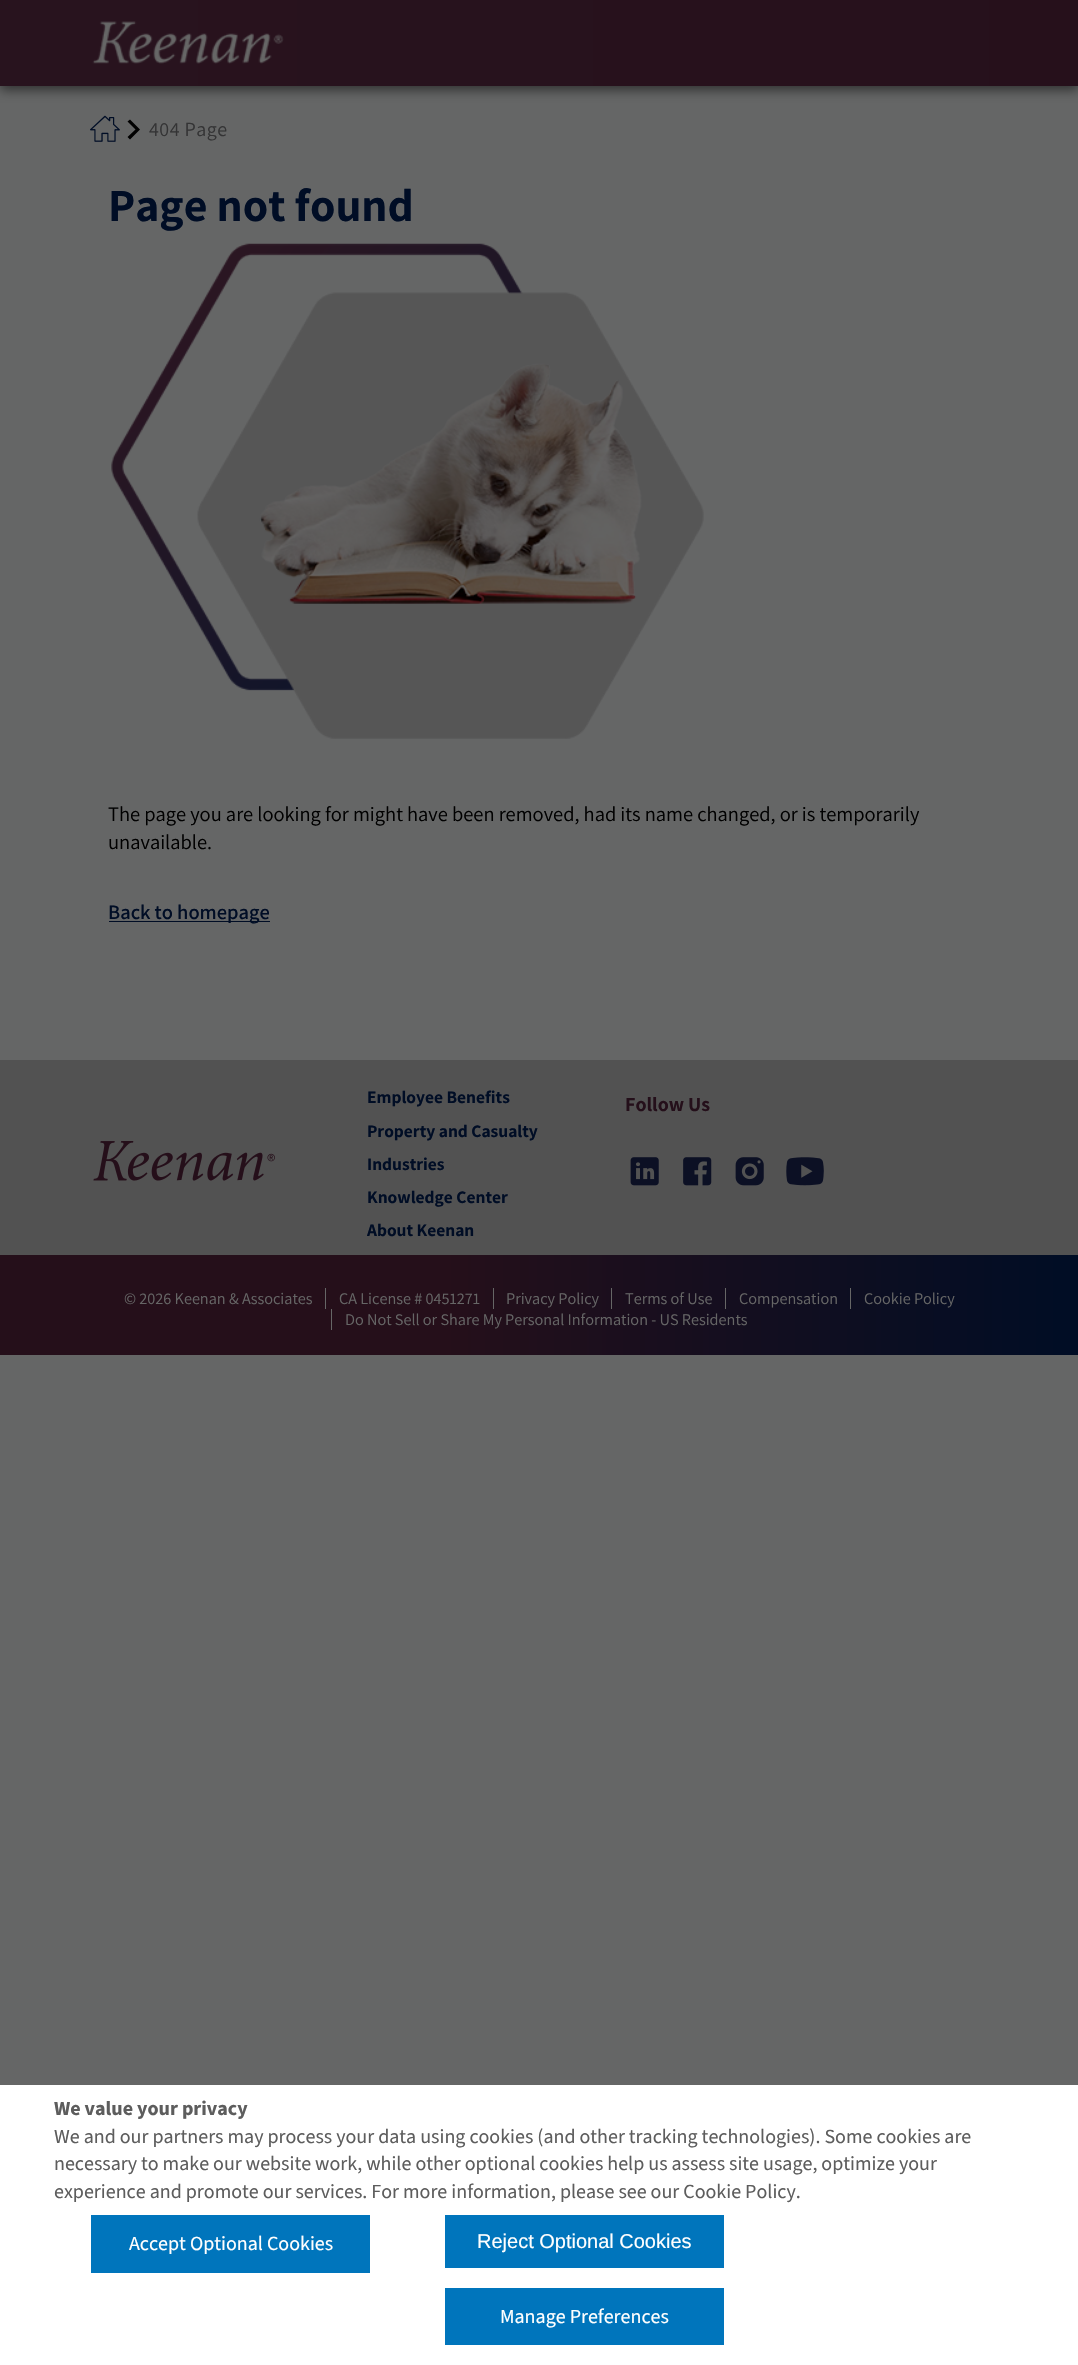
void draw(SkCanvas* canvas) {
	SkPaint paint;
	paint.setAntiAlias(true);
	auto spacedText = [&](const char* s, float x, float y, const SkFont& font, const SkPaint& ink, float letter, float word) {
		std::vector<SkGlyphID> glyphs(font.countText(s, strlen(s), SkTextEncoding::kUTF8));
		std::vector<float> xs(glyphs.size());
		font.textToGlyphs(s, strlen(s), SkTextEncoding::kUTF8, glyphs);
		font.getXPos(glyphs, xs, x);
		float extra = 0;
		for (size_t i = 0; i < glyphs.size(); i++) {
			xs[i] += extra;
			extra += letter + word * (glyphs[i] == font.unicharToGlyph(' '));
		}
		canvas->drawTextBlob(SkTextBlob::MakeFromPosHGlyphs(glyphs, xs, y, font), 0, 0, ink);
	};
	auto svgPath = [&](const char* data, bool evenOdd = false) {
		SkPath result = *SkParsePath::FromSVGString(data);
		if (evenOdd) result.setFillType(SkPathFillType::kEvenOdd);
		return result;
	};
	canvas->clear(0xff656666);
	paint.setColor(0x87000000);
	paint.setMaskFilter(SkMaskFilter::MakeBlur(kNormal_SkBlurStyle, 5.5));
	canvas->drawRect(SkRect::MakeXYWH(0, 4, 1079, 86), paint);
	paint.setMaskFilter(nullptr);
	{
		const SkColor colors[] = {0xff000d25, 0xff26101b, 0xff28131e};
		const float stops[] = {0, 0.5, 1};
		const SkPoint ends[] = {{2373, 43}, {0, 43}};
		paint.setShader(SkGradientShader::MakeLinear(ends, colors, stops, 3, SkTileMode::kClamp));
		paint.setAlpha(255);
	}
	canvas->drawRect(SkRect::MakeXYWH(0, 0, 1078, 86), paint);
	canvas->drawImageRect(SkImages::DeferredFromEncodedData(SkData::MakeFromFileName("img1.png")), SkRect::MakeXYWH(92, 21, 192, 43), SkSamplingOptions());
	canvas->drawImageRect(SkImages::DeferredFromEncodedData(SkData::MakeFromFileName("img2.png")), SkRect::MakeXYWH(90, 115, 30, 27), SkSamplingOptions());
	paint.setShader(nullptr);
	paint.setColor(0xff000000);
	canvas->drawPath(svgPath("M140 129.5L130 139.5L127.5 137L135.5 129.5L127.5 121.5L130 119.5Z"), paint);
	SkFont f1(fontMgr->matchFamilyStyle("Assistant", SkFontStyle::Normal()), 20);
	f1.setSubpixel(true);
	paint.setColor(0xff343435);
	spacedText("404 Page", 149, 136, f1, paint, 0.5, 0);
	SkFont f2(fontMgr->matchFamilyStyle("Assistant", SkFontStyle::Bold()), 46);
	f2.setSubpixel(true);
	paint.setColor(0xff000d25);
	canvas->drawString("Page not found", 108, 221, f2, paint);
	canvas->drawImageRect(SkImages::DeferredFromEncodedData(SkData::MakeFromFileName("img3.png")), SkRect::MakeXYWH(111, 243, 593, 496), SkSamplingOptions());
	SkFont f3(fontMgr->matchFamilyStyle("Assistant", SkFontStyle::Normal()), 20.5);
	f3.setSubpixel(true);
	paint.setColor(0xff000000);
	canvas->drawString("The page you are looking for might have been removed, had its name changed, or is temporarily", 108, 821, f3, paint);
	canvas->drawString("unavailable.", 108, 849, f3, paint);
	paint.setColor(0xff000d25);
	canvas->drawRect(SkRect::MakeXYWH(109, 921, 161, 1), paint);
	SkFont f4(fontMgr->matchFamilyStyle("Assistant", SkFontStyle(600, SkFontStyle::kNormal_Width, SkFontStyle::kUpright_Slant)), 20.5);
	f4.setSubpixel(true);
	canvas->drawString("Back to homepage", 108, 919, f4, paint);
	paint.setColor(0xff525252);
	canvas->drawRect(SkRect::MakeXYWH(0, 1060, 1078, 195), paint);
	canvas->drawImageRect(SkImages::DeferredFromEncodedData(SkData::MakeFromFileName("img4.png")), SkRect::MakeXYWH(93, 1141, 182, 40), SkSamplingOptions());
	SkFont f5(fontMgr->matchFamilyStyle("Assistant", SkFontStyle::Bold()), 17.5);
	f5.setSubpixel(true);
	paint.setColor(0xff000d25);
	canvas->drawString("Employee Benefits", 367, 1103, f5, paint);
	canvas->drawString("Property and Casualty", 367, 1137, f5, paint);
	canvas->drawString("Industries", 367, 1170, f5, paint);
	canvas->drawString("Knowledge Center", 367, 1203, f5, paint);
	canvas->drawString("About Keenan", 367, 1236, f5, paint);
	SkFont f6(fontMgr->matchFamilyStyle("Assistant", SkFontStyle::Bold()), 20);
	f6.setSubpixel(true);
	paint.setColor(0xff240f1a);
	canvas->drawString("Follow Us", 625, 1111, f6, paint);
	canvas->drawImageRect(SkImages::DeferredFromEncodedData(SkData::MakeFromFileName("img5.png")), SkRect::MakeXYWH(630, 1157, 29, 29), SkSamplingOptions());
	canvas->drawImageRect(SkImages::DeferredFromEncodedData(SkData::MakeFromFileName("img6.png")), SkRect::MakeXYWH(683, 1157, 29, 29), SkSamplingOptions());
	canvas->drawImageRect(SkImages::DeferredFromEncodedData(SkData::MakeFromFileName("img7.png")), SkRect::MakeXYWH(735, 1157, 29, 29), SkSamplingOptions());
	canvas->drawImageRect(SkImages::DeferredFromEncodedData(SkData::MakeFromFileName("img8.png")), SkRect::MakeXYWH(786, 1157, 38, 29), SkSamplingOptions());
	{
		const SkColor colors[] = {0xff250f1a, 0xff000d25};
		const float stops[] = {0.41, 1};
		const SkPoint ends[] = {{0, 1305}, {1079, 1305}};
		paint.setShader(SkGradientShader::MakeLinear(ends, colors, stops, 2, SkTileMode::kClamp));
		paint.setAlpha(255);
	}
	canvas->drawRect(SkRect::MakeXYWH(0, 1255, 1078, 100), paint);
	SkFont f7(fontMgr->matchFamilyStyle("Assistant", SkFontStyle::Normal()), 16.25);
	f7.setSubpixel(true);
	paint.setShader(nullptr);
	paint.setColor(0xff666666);
	canvas->drawString("© 2026 Keenan & Associates", 124, 1304, f7, paint);
	canvas->drawRect(SkRect::MakeXYWH(325, 1288, 1, 21), paint);
	canvas->drawString("CA License # 0451271", 339, 1304, f7, paint);
	canvas->drawRect(SkRect::MakeXYWH(493, 1288, 1, 21), paint);
	canvas->drawString("Privacy Policy", 506, 1304, f7, paint);
	canvas->drawRect(SkRect::MakeXYWH(611, 1288, 1, 21), paint);
	canvas->drawString("Terms of Use", 625, 1304, f7, paint);
	canvas->drawRect(SkRect::MakeXYWH(725, 1288, 1, 21), paint);
	canvas->drawString("Compensation", 739, 1304, f7, paint);
	canvas->drawRect(SkRect::MakeXYWH(850, 1288, 1, 21), paint);
	canvas->drawString("Cookie Policy", 864, 1304, f7, paint);
	canvas->drawRect(SkRect::MakeXYWH(331, 1309, 1, 21), paint);
	canvas->drawString("Do Not Sell or Share My Personal Information - US Residents", 345, 1325, f7, paint);
	paint.setColor(0xffffffff);
	canvas->drawRect(SkRect::MakeXYWH(0, 2085, 1078, 280), paint);
	SkFont f8(fontMgr->matchFamilyStyle("Source Sans 3", SkFontStyle::Bold()), 20);
	f8.setSubpixel(true);
	paint.setColor(0xff5d5d5d);
	canvas->drawString("We value your privacy", 54, 2115, f8, paint);
	SkFont f9(fontMgr->matchFamilyStyle("Source Sans 3", SkFontStyle::Normal()), 20);
	f9.setSubpixel(true);
	canvas->drawString("We and our partners may process your data using cookies (and other tracking technologies). Some cookies are", 54, 2143, f9, paint);
	canvas->drawString("necessary to make our website work, while other optional cookies help us assess site usage, optimize your", 54, 2170, f9, paint);
	canvas->drawString("experience and promote our services. For more information, please see our Cookie Policy.", 54, 2198, f9, paint);
	paint.setColor(0xff0075bc);
	canvas->drawRect(SkRect::MakeXYWH(91, 2215, 279, 58), paint);
	paint.setColor(0xffffffff);
	canvas->drawString("Accept Optional Cookies", 129, 2250, f9, paint);
	paint.setColor(0xff0075bc);
	canvas->drawRect(SkRect::MakeXYWH(445, 2215, 279, 53), paint);
	SkFont f10(fontMgr->matchFamilyStyle("Liberation Sans", SkFontStyle::Normal()), 20);
	f10.setSubpixel(true);
	paint.setColor(0xffffffff);
	canvas->drawString("Reject Optional Cookies", 477, 2248, f10, paint);
	paint.setColor(0xff0075bc);
	canvas->drawRect(SkRect::MakeXYWH(445, 2288, 279, 57), paint);
	paint.setColor(0xffffffff);
	canvas->drawString("Manage Preferences", 500, 2323, f9, paint);
}
